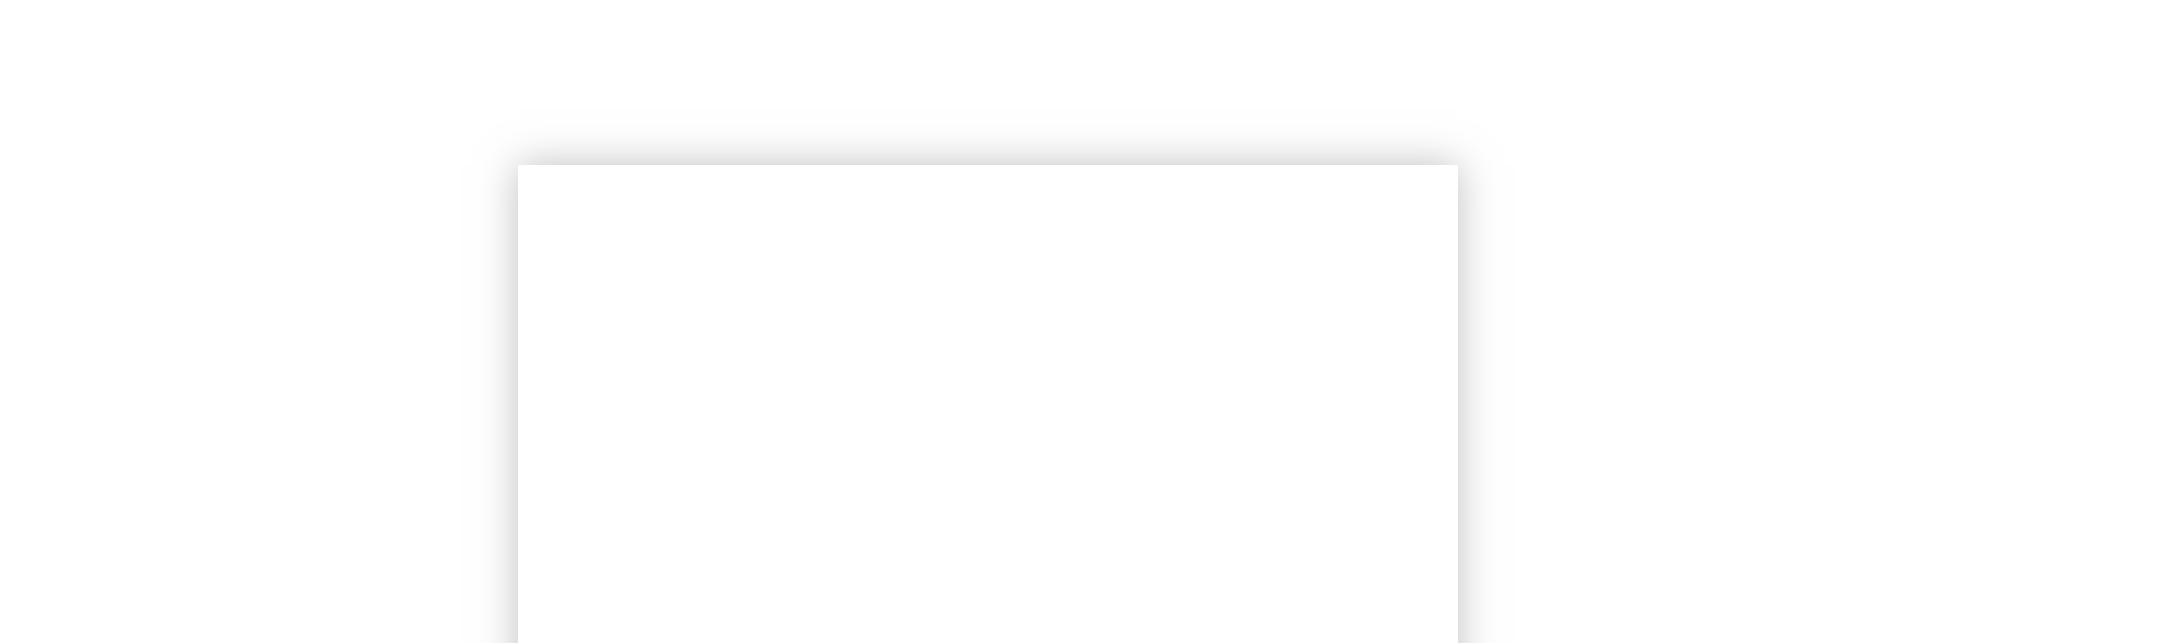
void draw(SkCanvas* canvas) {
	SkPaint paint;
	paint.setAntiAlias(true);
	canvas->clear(0xffffffff);
	paint.setColor(0x40000000);
	paint.setMaskFilter(SkMaskFilter::MakeBlur(kNormal_SkBlurStyle, 19));
	canvas->drawRect(SkRect::MakeXYWH(518, 165, 940, 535), paint);
	paint.setMaskFilter(nullptr);
	paint.setColor(0xffffffff);
	canvas->drawRect(SkRect::MakeXYWH(518, 165, 940, 478), paint);
}
